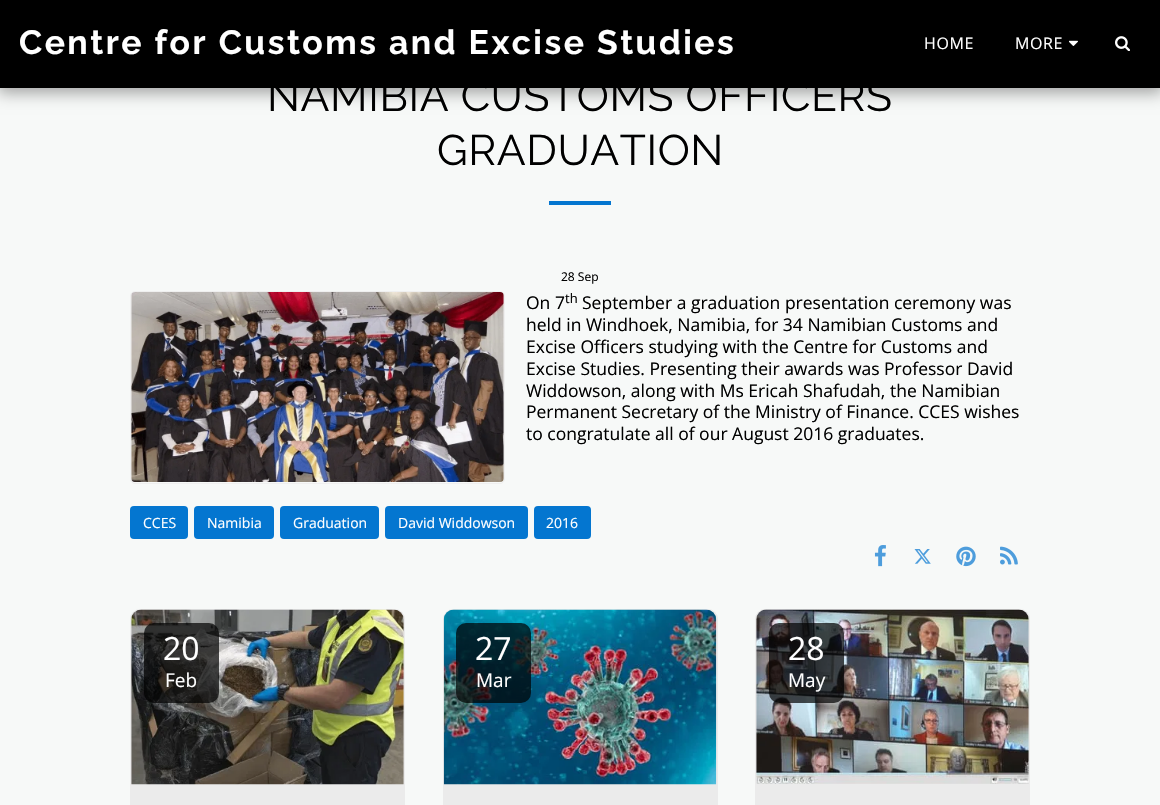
void draw(SkCanvas* canvas) {
	SkPaint paint;
	paint.setAntiAlias(true);
	auto spacedText = [&](const char* s, float x, float y, const SkFont& font, const SkPaint& ink, float letter, float word) {
		std::vector<SkGlyphID> glyphs(font.countText(s, strlen(s), SkTextEncoding::kUTF8));
		std::vector<float> xs(glyphs.size());
		font.textToGlyphs(s, strlen(s), SkTextEncoding::kUTF8, glyphs);
		font.getXPos(glyphs, xs, x);
		float extra = 0;
		for (size_t i = 0; i < glyphs.size(); i++) {
			xs[i] += extra;
			extra += letter + word * (glyphs[i] == font.unicharToGlyph(' '));
		}
		canvas->drawTextBlob(SkTextBlob::MakeFromPosHGlyphs(glyphs, xs, y, font), 0, 0, ink);
	};
	canvas->clear(0xfff7f9f8);
	paint.setColor(0x59000000);
	paint.setMaskFilter(SkMaskFilter::MakeBlur(kNormal_SkBlurStyle, 7.5));
	canvas->drawRect(SkRect::MakeXYWH(-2, 0, 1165, 93), paint);
	paint.setMaskFilter(nullptr);
	paint.setColor(0xff000000);
	canvas->drawRect(SkRect::MakeXYWH(0, 0, 1160, 88), paint);
	SkFont f1(fontMgr->matchFamilyStyle("Raleway", SkFontStyle::Bold()), 33.75);
	f1.setSubpixel(true);
	paint.setColor(0xffffffff);
	spacedText("Centre for Customs and Excise Studies", 19, 54, f1, paint, 2.5, 0);
	SkFont f2(fontMgr->matchFamilyStyle("Open Sans", SkFontStyle::Normal()), 16);
	f2.setSubpixel(true);
	spacedText("HOME", 924, 49, f2, paint, 0.6, 0);
	spacedText("MORE", 1015, 49, f2, paint, 0.6, 0);
	canvas->drawImageRect(SkImages::DeferredFromEncodedData(SkData::MakeFromFileName("img1.png")), SkRect::MakeXYWH(1069, 40, 9, 6), SkSamplingOptions());
	canvas->drawImageRect(SkImages::DeferredFromEncodedData(SkData::MakeFromFileName("img2.png")), SkRect::MakeXYWH(1115, 36, 15, 15), SkSamplingOptions());
	SkFont f3(fontMgr->matchFamilyStyle("Raleway", SkFontStyle::Normal()), 42.75);
	f3.setSubpixel(true);
	paint.setColor(0xff000000);
	spacedText("NAMIBIA CUSTOMS OFFICERS", 267, 111, f3, paint, 0.6, 0);
	spacedText("GRADUATION", 437, 165, f3, paint, 0.6, 0);
	paint.setColor(0xff0476d0);
	canvas->drawRect(SkRect::MakeXYWH(549, 201, 62, 4), paint);
	SkFont f4(fontMgr->matchFamilyStyle("Open Sans", SkFontStyle::Normal()), 12);
	f4.setSubpixel(true);
	paint.setColor(0xff000000);
	canvas->drawString("28 Sep", 561, 281, f4, paint);
	paint.setStroke(true);
	paint.setStrokeWidth(1);
	paint.setColor(0xffefefef);
	canvas->drawRoundRect(SkRect::MakeXYWH(130.5, 291.5, 374, 192), 4.5, 4.5, paint);
	canvas->drawImageRect(SkImages::DeferredFromEncodedData(SkData::MakeFromFileName("img3.png")), SkRect::MakeXYWH(131, 292, 373, 190), SkSamplingOptions());
	SkFont f5(fontMgr->matchFamilyStyle("Open Sans", SkFontStyle::Normal()), 17.5);
	f5.setSubpixel(true);
	paint.setStroke(false);
	paint.setColor(0xff000000);
	canvas->drawString("On 7", 526, 309, f5, paint);
	SkFont f6(fontMgr->matchFamilyStyle("Open Sans", SkFontStyle::Normal()), 13);
	f6.setSubpixel(true);
	canvas->drawString("th", 565, 303, f6, paint);
	canvas->drawString("September a graduation presentation ceremony was", 582, 309, f5, paint);
	canvas->drawString("held in Windhoek, Namibia, for 34 Namibian Customs and", 526, 331, f5, paint);
	canvas->drawString("Excise Officers studying with the Centre for Customs and", 526, 353, f5, paint);
	canvas->drawString("Excise Studies. Presenting their awards was Professor David", 526, 375, f5, paint);
	canvas->drawString("Widdowson, along with Ms Ericah Shafudah, the Namibian", 526, 397, f5, paint);
	canvas->drawString("Permanent Secretary of the Ministry of Finance. CCES wishes", 526, 418, f5, paint);
	canvas->drawString("to congratulate all of our August 2016 graduates.", 526, 440, f5, paint);
	paint.setColor(0xff0476d0);
	canvas->drawRoundRect(SkRect::MakeXYWH(130, 506, 58, 33), 4, 4, paint);
	SkFont f7(fontMgr->matchFamilyStyle("Open Sans", SkFontStyle::Normal()), 14);
	f7.setSubpixel(true);
	paint.setColor(0xffffffff);
	canvas->drawString("CCES", 143, 528, f7, paint);
	paint.setColor(0xff0476d0);
	canvas->drawRoundRect(SkRect::MakeXYWH(194, 506, 80, 33), 4, 4, paint);
	paint.setColor(0xffffffff);
	canvas->drawString("Namibia", 207, 528, f7, paint);
	paint.setColor(0xff0476d0);
	canvas->drawRoundRect(SkRect::MakeXYWH(280, 506, 99, 33), 4, 4, paint);
	paint.setColor(0xffffffff);
	canvas->drawString("Graduation", 293, 528, f7, paint);
	paint.setColor(0xff0476d0);
	canvas->drawRoundRect(SkRect::MakeXYWH(385, 506, 143, 33), 4, 4, paint);
	paint.setColor(0xffffffff);
	canvas->drawString("David Widdowson", 398, 528, f7, paint);
	paint.setColor(0xff0476d0);
	canvas->drawRoundRect(SkRect::MakeXYWH(534, 506, 57, 33), 4, 4, paint);
	paint.setColor(0xffffffff);
	canvas->drawString("2016", 546, 528, f7, paint);
	canvas->drawImageRect(SkImages::DeferredFromEncodedData(SkData::MakeFromFileName("img4.png")), SkRect::MakeXYWH(874, 545, 12, 22), SkSamplingOptions());
	canvas->drawImageRect(SkImages::DeferredFromEncodedData(SkData::MakeFromFileName("img5.png")), SkRect::MakeXYWH(914, 549, 17, 15), SkSamplingOptions());
	canvas->drawImageRect(SkImages::DeferredFromEncodedData(SkData::MakeFromFileName("img6.png")), SkRect::MakeXYWH(956, 546, 20, 21), SkSamplingOptions());
	canvas->drawImageRect(SkImages::DeferredFromEncodedData(SkData::MakeFromFileName("img7.png")), SkRect::MakeXYWH(1000, 546, 18, 19), SkSamplingOptions());
	paint.setColor(0xffebebeb);
	canvas->drawRoundRect(SkRect::MakeXYWH(130.5, 609.5, 274, 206), 9.5, 9.5, paint);
	paint.setStroke(true);
	canvas->drawRoundRect(SkRect::MakeXYWH(130.5, 609.5, 274, 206), 9.5, 9.5, paint);
	canvas->drawImageRect(SkImages::DeferredFromEncodedData(SkData::MakeFromFileName("img8.png")), SkRect::MakeXYWH(131, 609, 273, 176), SkSamplingOptions());
	paint.setStroke(false);
	paint.setColor(0xb3000000);
	canvas->drawRoundRect(SkRect::MakeXYWH(144, 623, 75, 80), 10, 10, paint);
	SkFont f8(fontMgr->matchFamilyStyle("Open Sans", SkFontStyle::Normal()), 32);
	f8.setSubpixel(true);
	paint.setColor(0xffffffff);
	canvas->drawString("20", 163, 660, f8, paint);
	SkFont f9(fontMgr->matchFamilyStyle("Open Sans", SkFontStyle::Normal()), 19);
	f9.setSubpixel(true);
	canvas->drawString("Feb", 165, 687, f9, paint);
	paint.setColor(0xffebebeb);
	canvas->drawRoundRect(SkRect::MakeXYWH(443.5, 609.5, 274, 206), 9.5, 9.5, paint);
	paint.setStroke(true);
	canvas->drawRoundRect(SkRect::MakeXYWH(443.5, 609.5, 274, 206), 9.5, 9.5, paint);
	canvas->drawImageRect(SkImages::DeferredFromEncodedData(SkData::MakeFromFileName("img9.png")), SkRect::MakeXYWH(443, 609, 274, 176), SkSamplingOptions());
	paint.setStroke(false);
	paint.setColor(0xb3000000);
	canvas->drawRoundRect(SkRect::MakeXYWH(456, 623, 75, 80), 10, 10, paint);
	paint.setColor(0xffffffff);
	canvas->drawString("27", 475, 660, f8, paint);
	canvas->drawString("Mar", 476, 687, f9, paint);
	paint.setColor(0xffebebeb);
	canvas->drawRoundRect(SkRect::MakeXYWH(755.5, 609.5, 274, 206), 9.5, 9.5, paint);
	paint.setStroke(true);
	canvas->drawRoundRect(SkRect::MakeXYWH(755.5, 609.5, 274, 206), 9.5, 9.5, paint);
	canvas->drawImageRect(SkImages::DeferredFromEncodedData(SkData::MakeFromFileName("img10.png")), SkRect::MakeXYWH(756, 609, 273, 175), SkSamplingOptions());
	paint.setStroke(false);
	paint.setColor(0xb3000000);
	canvas->drawRoundRect(SkRect::MakeXYWH(769, 623, 75, 80), 10, 10, paint);
	paint.setColor(0xffffffff);
	canvas->drawString("28", 788, 660, f8, paint);
	canvas->drawString("May", 788, 687, f9, paint);
}
